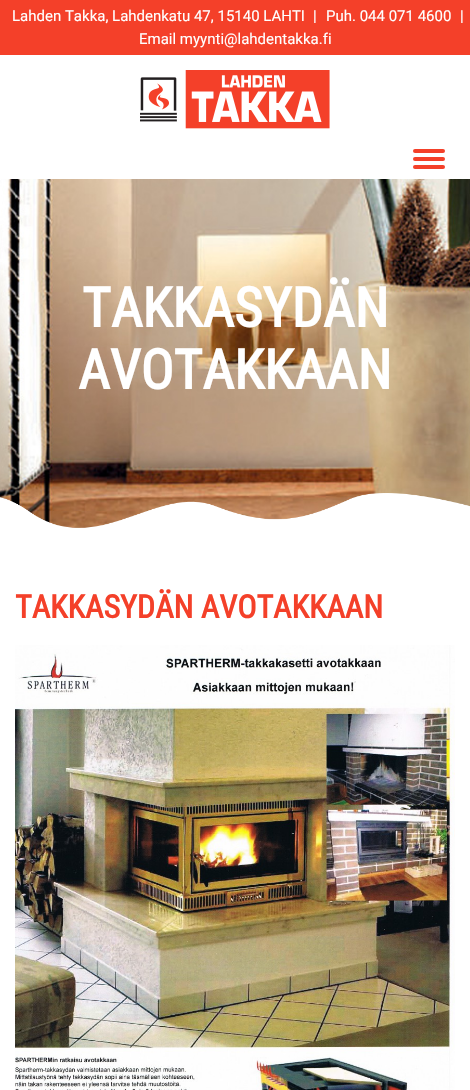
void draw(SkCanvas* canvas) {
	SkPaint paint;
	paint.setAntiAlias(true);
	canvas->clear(0xffffffff);
	paint.setColor(0xfff44029);
	canvas->drawRect(SkRect::MakeXYWH(0, 0, 470, 55), paint);
	SkFont f1(fontMgr->matchFamilyStyle("Roboto", SkFontStyle::Normal()), 15);
	f1.setSubpixel(true);
	paint.setColor(0xffffffff);
	canvas->drawString("Lahden Takka, Lahdenkatu 47, 15140 LAHTI", 12, 21, f1, paint);
	canvas->drawString("|", 313, 21, f1, paint);
	canvas->drawString("Puh. 044 071 4600", 326, 21, f1, paint);
	canvas->drawString("|", 460, 21, f1, paint);
	canvas->drawString("Email myynti@lahdentakka.fi", 139, 44, f1, paint);
	canvas->drawImageRect(SkImages::DeferredFromEncodedData(SkData::MakeFromFileName("img1.png")), SkRect::MakeXYWH(140, 70, 190, 59), SkSamplingOptions());
	paint.setColor(0xfff44029);
	canvas->drawRoundRect(SkRect::MakeXYWH(413, 149, 32, 4), 2, 2, paint);
	canvas->drawRoundRect(SkRect::MakeXYWH(413, 157, 32, 4), 2, 2, paint);
	canvas->drawRoundRect(SkRect::MakeXYWH(413, 165, 32, 4), 2, 2, paint);
	canvas->drawImageRect(SkImages::DeferredFromEncodedData(SkData::MakeFromFileName("img2.png")), SkRect::MakeXYWH(0, 179, 470, 349), SkSamplingOptions());
	SkFont f2(fontMgr->matchFamilyStyle("Roboto Condensed", SkFontStyle::Bold()), 55);
	f2.setSubpixel(true);
	paint.setColor(0xffffffff);
	canvas->drawString("TAKKASYDÄN", 82, 327, f2, paint);
	canvas->drawString("AVOTAKKAAN", 78, 389, f2, paint);
	canvas->drawImageRect(SkImages::DeferredFromEncodedData(SkData::MakeFromFileName("img3.png")), SkRect::MakeXYWH(0, 493, 470, 36), SkSamplingOptions());
	SkFont f3(fontMgr->matchFamilyStyle("Roboto Condensed", SkFontStyle::Bold()), 32);
	f3.setSubpixel(true);
	paint.setColor(0xfff44029);
	canvas->drawString("TAKKASYDÄN AVOTAKKAAN", 15, 618, f3, paint);
	canvas->drawImageRect(SkImages::DeferredFromEncodedData(SkData::MakeFromFileName("img4.png")), SkRect::MakeXYWH(15, 645, 440, 445), SkSamplingOptions());
}
